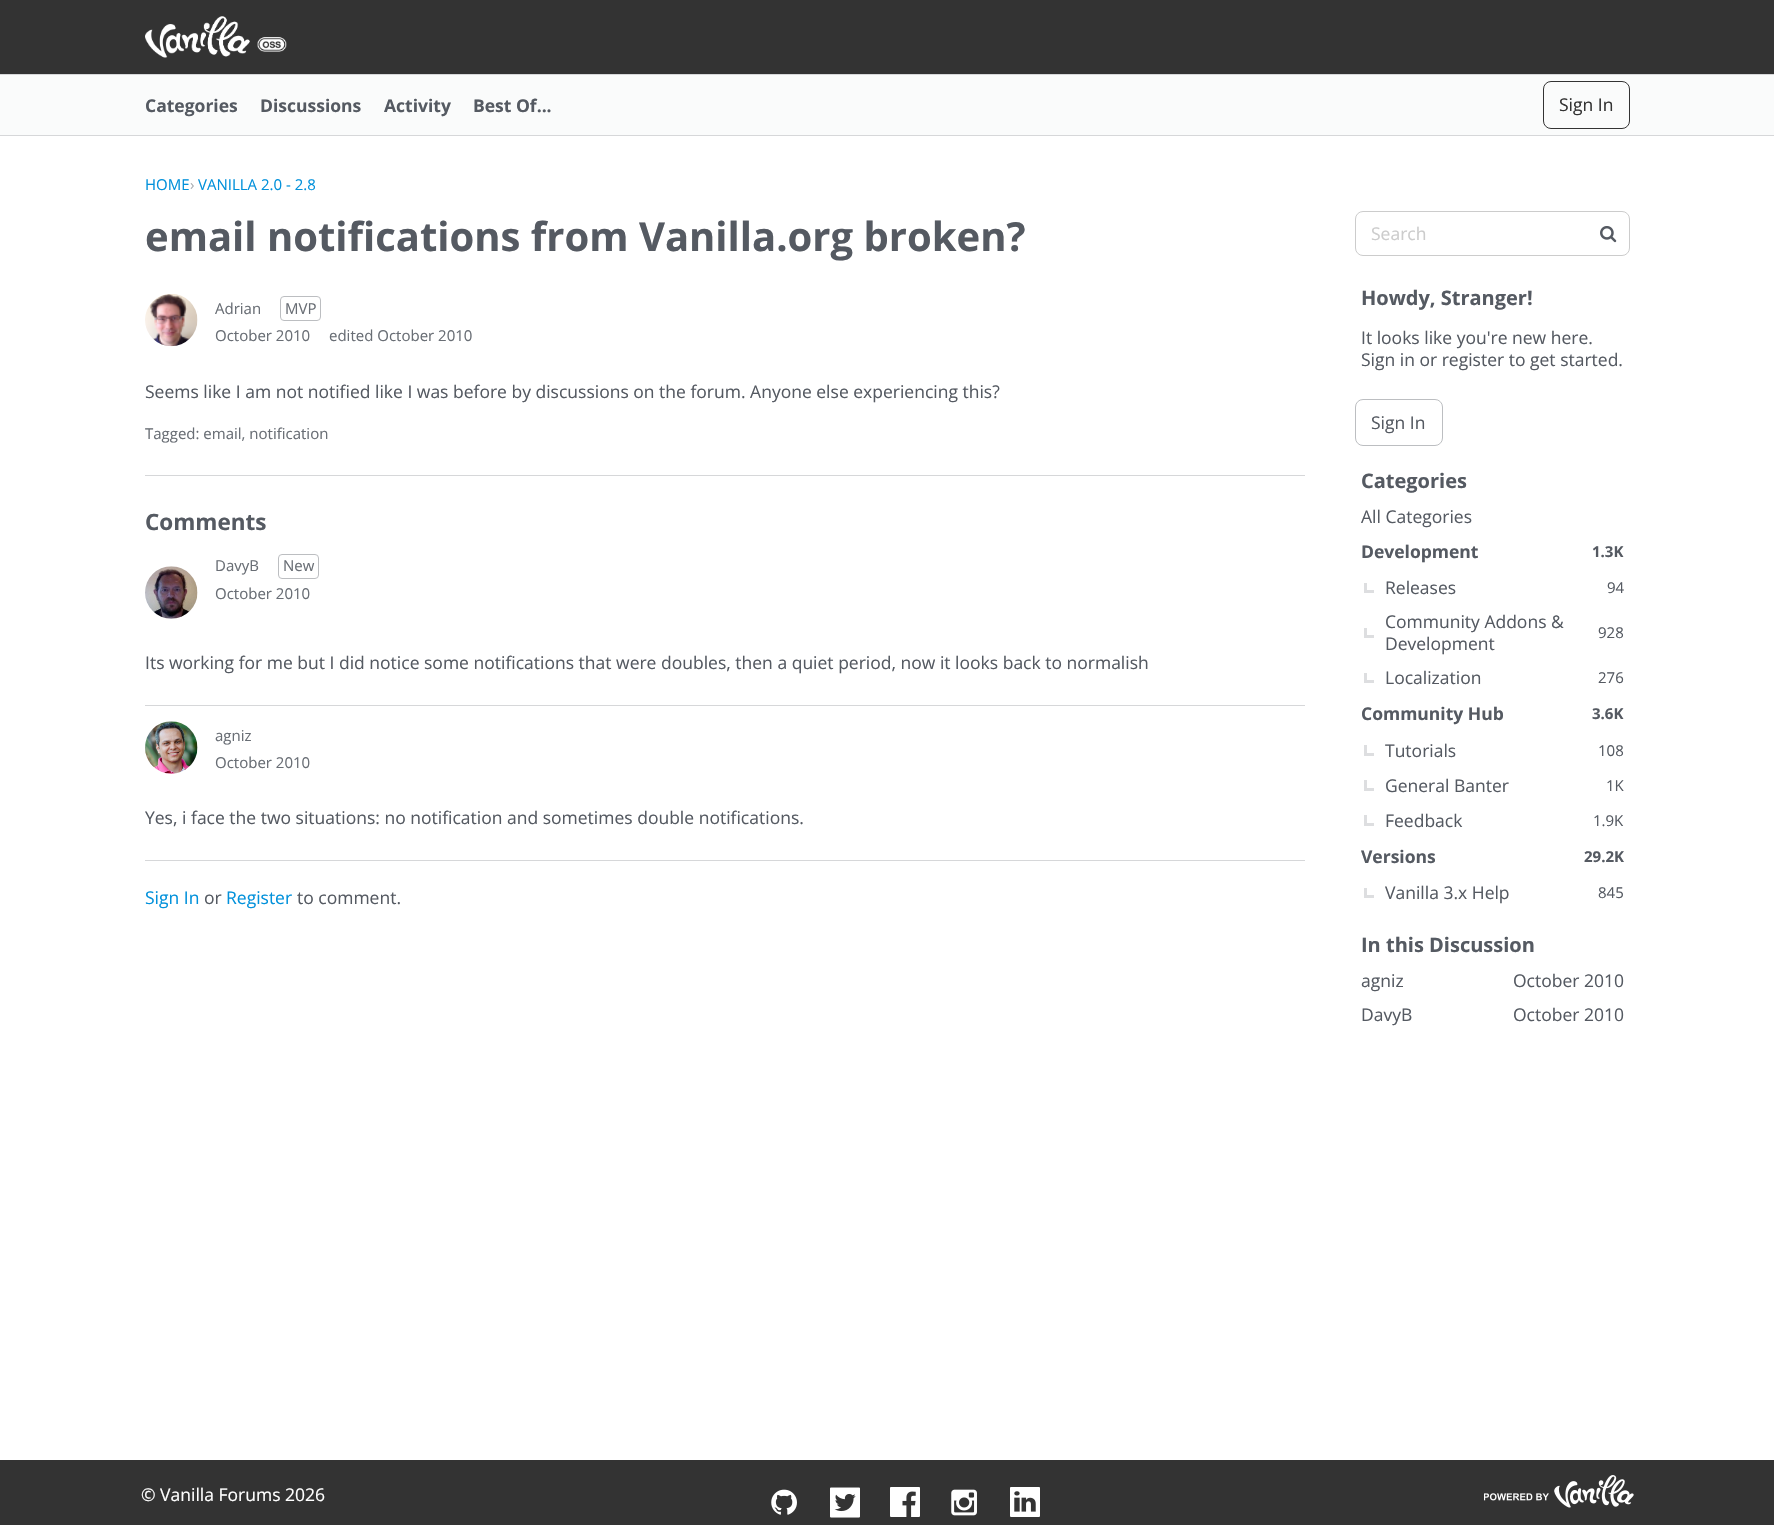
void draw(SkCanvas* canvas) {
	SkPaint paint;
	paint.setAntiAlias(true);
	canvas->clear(0xffffffff);
	paint.setColor(0xff333333);
	canvas->drawRect(SkRect::MakeXYWH(0, 0, 1774, 74), paint);
	paint.setColor(0xffd6d7d9);
	canvas->drawRect(SkRect::MakeXYWH(0, 74, 1774, 1), paint);
	canvas->drawImageRect(SkImages::DeferredFromEncodedData(SkData::MakeFromFileName("img1.png")), SkRect::MakeXYWH(145, 16, 142, 42), SkSamplingOptions());
	paint.setColor(0xfffafbfb);
	canvas->drawRect(SkRect::MakeXYWH(0, 75, 1774, 60), paint);
	paint.setColor(0xffd6d7d9);
	canvas->drawRect(SkRect::MakeXYWH(0, 135, 1774, 1), paint);
	SkFont f1(fontMgr->matchFamilyStyle("Open Sans", SkFontStyle::Bold()), 17.5);
	f1.setSubpixel(true);
	paint.setColor(0xff555a62);
	canvas->drawString("Categories", 145, 112, f1, paint);
	canvas->drawString("Discussions", 260, 112, f1, paint);
	canvas->drawString("Activity", 384, 112, f1, paint);
	canvas->drawString("Best Of...", 473, 112, f1, paint);
	paint.setStroke(true);
	paint.setStrokeWidth(1);
	paint.setColor(0xff333333);
	canvas->drawRoundRect(SkRect::MakeXYWH(1543.5, 81.5, 86, 47), 7.5, 7.5, paint);
	SkFont f2(fontMgr->matchFamilyStyle("Open Sans", SkFontStyle::Normal()), 17.5);
	f2.setSubpixel(true);
	paint.setStroke(false);
	canvas->drawString("Sign In", 1559, 111, f2, paint);
	SkFont f3(fontMgr->matchFamilyStyle("Open Sans", SkFontStyle::Normal()), 15);
	f3.setSubpixel(true);
	paint.setColor(0xff0291db);
	canvas->drawString("HOME", 145, 190, f3, paint);
	paint.setColor(0xffaaadb1);
	canvas->drawString("›", 190, 190, f3, paint);
	paint.setColor(0xff0291db);
	canvas->drawString("VANILLA 2.0 - 2.8", 198, 190, f3, paint);
	SkFont f4(fontMgr->matchFamilyStyle("Open Sans", SkFontStyle::Bold()), 40);
	f4.setSubpixel(true);
	paint.setColor(0xff555a62);
	canvas->drawString("email notifications from Vanilla.org broken?", 145, 251, f4, paint);
	paint.setColor(0xffd6d7d9);
	canvas->drawRect(SkRect::MakeXYWH(145, 475, 1160, 1), paint);
	canvas->drawImageRect(SkImages::DeferredFromEncodedData(SkData::MakeFromFileName("img2.png")), SkRect::MakeXYWH(145, 294, 53, 53), SkSamplingOptions());
	paint.setColor(0xff696e75);
	canvas->drawString("Adrian", 215, 314, f3, paint);
	paint.setStroke(true);
	paint.setColor(0xffbcbec1);
	canvas->drawRoundRect(SkRect::MakeXYWH(280.5, 296.5, 40, 24), 3.5, 3.5, paint);
	paint.setStroke(false);
	paint.setColor(0xff696e75);
	canvas->drawString("MVP", 285, 314, f3, paint);
	canvas->drawString("October 2010", 215, 341, f3, paint);
	canvas->drawString("edited October 2010", 329, 341, f3, paint);
	paint.setColor(0xff555a62);
	canvas->drawString("Seems like I am not notified like I was before by discussions on the forum. Anyone else experiencing this?", 145, 398, f2, paint);
	paint.setColor(0xff696e75);
	canvas->drawString("Tagged: email, notification", 145, 439, f3, paint);
	SkFont f5(fontMgr->matchFamilyStyle("Open Sans", SkFontStyle::Bold()), 22.5);
	f5.setSubpixel(true);
	paint.setColor(0xff555a62);
	canvas->drawString("Comments", 145, 530, f5, paint);
	canvas->drawImageRect(SkImages::DeferredFromEncodedData(SkData::MakeFromFileName("img3.png")), SkRect::MakeXYWH(145, 566, 53, 53), SkSamplingOptions());
	paint.setColor(0xff696e75);
	canvas->drawString("DavyB", 215, 571, f3, paint);
	paint.setStroke(true);
	paint.setColor(0xffbcbec1);
	canvas->drawRoundRect(SkRect::MakeXYWH(278.5, 554.5, 40, 24), 3.5, 3.5, paint);
	paint.setStroke(false);
	paint.setColor(0xff696e75);
	canvas->drawString("New", 283, 571, f3, paint);
	canvas->drawString("October 2010", 215, 599, f3, paint);
	paint.setColor(0xff555a62);
	canvas->drawString("Its working for me but I did notice some notifications that were doubles, then a quiet period, now it looks back to normalish", 145, 669, f2, paint);
	paint.setColor(0xffd6d7d9);
	canvas->drawRect(SkRect::MakeXYWH(145, 705, 1160, 1), paint);
	canvas->drawRect(SkRect::MakeXYWH(145, 860, 1160, 1), paint);
	canvas->drawImageRect(SkImages::DeferredFromEncodedData(SkData::MakeFromFileName("img4.png")), SkRect::MakeXYWH(145, 721, 53, 53), SkSamplingOptions());
	paint.setColor(0xff696e75);
	canvas->drawString("agniz", 215, 741, f3, paint);
	canvas->drawString("October 2010", 215, 768, f3, paint);
	paint.setColor(0xff555a62);
	canvas->drawString("Yes, i face the two situations: no notification and sometimes double notifications.", 145, 824, f2, paint);
	paint.setColor(0xff0291db);
	canvas->drawString("Sign In", 145, 904, f2, paint);
	paint.setColor(0xff555a62);
	canvas->drawString("or", 204, 904, f2, paint);
	paint.setColor(0xff0291db);
	canvas->drawString("Register", 226, 904, f2, paint);
	paint.setColor(0xff555a62);
	canvas->drawString("to comment.", 297, 904, f2, paint);
	paint.setStroke(true);
	paint.setColor(0xffcccccc);
	canvas->drawRoundRect(SkRect::MakeXYWH(1355.5, 211.5, 274, 44), 7.5, 7.5, paint);
	paint.setStroke(false);
	canvas->drawString("Search", 1371, 240, f2, paint);
	canvas->drawImageRect(SkImages::DeferredFromEncodedData(SkData::MakeFromFileName("img5.png")), SkRect::MakeXYWH(1600, 226, 17, 17), SkSamplingOptions());
	SkFont f6(fontMgr->matchFamilyStyle("Open Sans", SkFontStyle::Bold()), 20);
	f6.setSubpixel(true);
	paint.setColor(0xff555a62);
	canvas->drawString("Howdy, Stranger!", 1361, 305, f6, paint);
	canvas->drawString("It looks like you're new here.", 1361, 344, f2, paint);
	canvas->drawString("Sign in or register to get started.", 1361, 366, f2, paint);
	paint.setStroke(true);
	paint.setColor(0xffbcbec1);
	canvas->drawRoundRect(SkRect::MakeXYWH(1355.5, 399.5, 87, 46), 7.5, 7.5, paint);
	paint.setStroke(false);
	paint.setColor(0xff555a62);
	canvas->drawString("Sign In", 1371, 429, f2, paint);
	canvas->drawString("Categories", 1361, 488, f6, paint);
	canvas->drawString("All Categories", 1361, 523, f2, paint);
	canvas->drawString("Development", 1361, 558, f1, paint);
	SkFont f7(fontMgr->matchFamilyStyle("Open Sans", SkFontStyle::Bold()), 15);
	f7.setSubpixel(true);
	canvas->drawString("1.3K", 1592, 557, f7, paint);
	paint.setColor(0xffdddee0);
	canvas->drawRect(SkRect::MakeXYWH(1364, 590, 10, 3), paint);
	canvas->drawRect(SkRect::MakeXYWH(1364, 583, 3, 10), paint);
	paint.setColor(0xff555a62);
	canvas->drawString("Releases", 1385, 594, f2, paint);
	canvas->drawString("94", 1607, 593, f3, paint);
	paint.setColor(0xffdddee0);
	canvas->drawRect(SkRect::MakeXYWH(1364, 635, 10, 3), paint);
	canvas->drawRect(SkRect::MakeXYWH(1364, 628, 3, 10), paint);
	paint.setColor(0xff555a62);
	canvas->drawString("Community Addons &", 1385, 628, f2, paint);
	canvas->drawString("928", 1598, 638, f3, paint);
	canvas->drawString("Development", 1385, 650, f2, paint);
	paint.setColor(0xffdddee0);
	canvas->drawRect(SkRect::MakeXYWH(1364, 680, 10, 3), paint);
	canvas->drawRect(SkRect::MakeXYWH(1364, 673, 3, 10), paint);
	paint.setColor(0xff555a62);
	canvas->drawString("Localization", 1385, 684, f2, paint);
	canvas->drawString("276", 1598, 683, f3, paint);
	canvas->drawString("Community Hub", 1361, 720, f1, paint);
	canvas->drawString("3.6K", 1592, 719, f7, paint);
	paint.setColor(0xffdddee0);
	canvas->drawRect(SkRect::MakeXYWH(1364, 753, 10, 3), paint);
	canvas->drawRect(SkRect::MakeXYWH(1364, 745, 3, 10), paint);
	paint.setColor(0xff555a62);
	canvas->drawString("Tutorials", 1385, 757, f2, paint);
	canvas->drawString("108", 1598, 756, f3, paint);
	paint.setColor(0xffdddee0);
	canvas->drawRect(SkRect::MakeXYWH(1364, 788, 10, 3), paint);
	canvas->drawRect(SkRect::MakeXYWH(1364, 780, 3, 10), paint);
	paint.setColor(0xff555a62);
	canvas->drawString("General Banter", 1385, 792, f2, paint);
	canvas->drawString("1K", 1606, 791, f3, paint);
	paint.setColor(0xffdddee0);
	canvas->drawRect(SkRect::MakeXYWH(1364, 823, 10, 3), paint);
	canvas->drawRect(SkRect::MakeXYWH(1364, 815, 3, 10), paint);
	paint.setColor(0xff555a62);
	canvas->drawString("Feedback", 1385, 827, f2, paint);
	canvas->drawString("1.9K", 1593, 826, f3, paint);
	canvas->drawString("Versions", 1361, 863, f1, paint);
	canvas->drawString("29.2K", 1584, 862, f7, paint);
	paint.setColor(0xffdddee0);
	canvas->drawRect(SkRect::MakeXYWH(1364, 895, 10, 3), paint);
	canvas->drawRect(SkRect::MakeXYWH(1364, 888, 3, 10), paint);
	paint.setColor(0xff555a62);
	canvas->drawString("Vanilla 3.x Help", 1385, 899, f2, paint);
	canvas->drawString("845", 1598, 898, f3, paint);
	canvas->drawString("In this Discussion", 1361, 952, f6, paint);
	canvas->drawString("agniz", 1361, 987, f2, paint);
	canvas->drawString("October 2010", 1513, 987, f2, paint);
	canvas->drawString("DavyB", 1361, 1021, f2, paint);
	canvas->drawString("October 2010", 1513, 1021, f2, paint);
	paint.setColor(0xff333333);
	canvas->drawRect(SkRect::MakeXYWH(0, 1460, 1774, 65), paint);
	paint.setColor(0xffffffff);
	canvas->drawString("© Vanilla Forums 2026", 141, 1501, f2, paint);
	canvas->drawImageRect(SkImages::DeferredFromEncodedData(SkData::MakeFromFileName("img6.png")), SkRect::MakeXYWH(771, 1489, 26, 26), SkSamplingOptions());
	canvas->drawImageRect(SkImages::DeferredFromEncodedData(SkData::MakeFromFileName("img7.png")), SkRect::MakeXYWH(830, 1487, 30, 31), SkSamplingOptions());
	canvas->drawImageRect(SkImages::DeferredFromEncodedData(SkData::MakeFromFileName("img8.png")), SkRect::MakeXYWH(890, 1487, 30, 30), SkSamplingOptions());
	canvas->drawImageRect(SkImages::DeferredFromEncodedData(SkData::MakeFromFileName("img9.png")), SkRect::MakeXYWH(951, 1489, 26, 27), SkSamplingOptions());
	canvas->drawImageRect(SkImages::DeferredFromEncodedData(SkData::MakeFromFileName("img10.png")), SkRect::MakeXYWH(1010, 1487, 30, 30), SkSamplingOptions());
	canvas->drawImageRect(SkImages::DeferredFromEncodedData(SkData::MakeFromFileName("img11.png")), SkRect::MakeXYWH(1484, 1475, 150, 33), SkSamplingOptions());
}
